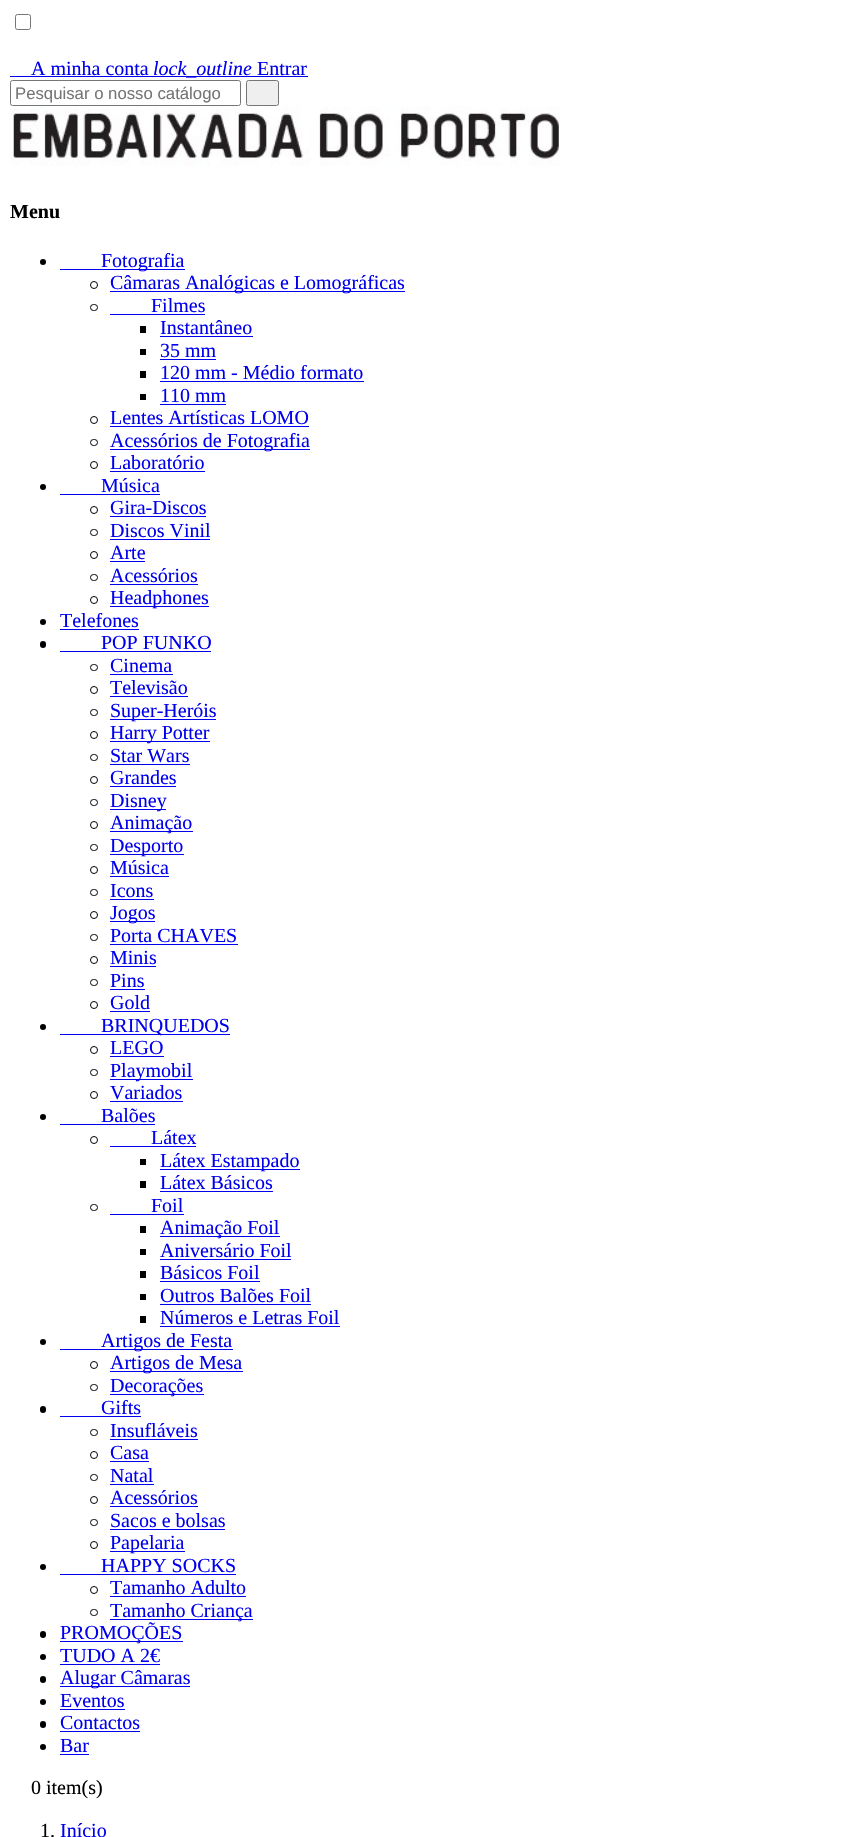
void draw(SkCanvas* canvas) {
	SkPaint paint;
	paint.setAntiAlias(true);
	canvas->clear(0xffffffff);
	paint.setStroke(true);
	paint.setStrokeWidth(1);
	paint.setColor(0xff767676);
	canvas->drawRoundRect(SkRect::MakeXYWH(15.5, 14.5, 15, 15), 2, 2, paint);
	SkFont f1(fontMgr->matchFamilyStyle("Liberation Serif", SkFontStyle::Normal()), 20);
	f1.setSubpixel(true);
	paint.setStroke(false);
	paint.setColor(0xff0000ee);
	canvas->drawString("A minha conta", 31, 75, f1, paint);
	canvas->drawRect(SkRect::MakeXYWH(10, 76, 298, 1), paint);
	SkFont f2(fontMgr->matchFamilyStyle("Liberation Serif", SkFontStyle::Italic()), 20);
	f2.setSubpixel(true);
	canvas->drawString("lock_outline", 153, 75, f2, paint);
	canvas->drawString("Entrar", 257, 75, f1, paint);
	paint.setStroke(true);
	paint.setColor(0xff767676);
	canvas->drawRoundRect(SkRect::MakeXYWH(10.5, 80.5, 230, 25), 2, 2, paint);
	SkFont f3(fontMgr->matchFamilyStyle("Liberation Sans", SkFontStyle::Normal()), 16.75);
	f3.setSubpixel(true);
	paint.setStroke(false);
	paint.setColor(0xff757575);
	canvas->drawString("Pesquisar o nosso catálogo", 15, 99, f3, paint);
	paint.setColor(0xffefefef);
	canvas->drawRoundRect(SkRect::MakeXYWH(246.5, 80.5, 32, 25), 2, 2, paint);
	paint.setStroke(true);
	paint.setColor(0xff767676);
	canvas->drawRoundRect(SkRect::MakeXYWH(246.5, 80.5, 32, 25), 2, 2, paint);
	canvas->drawImageRect(SkImages::DeferredFromEncodedData(SkData::MakeFromFileName("img1.png")), SkRect::MakeXYWH(10, 106, 550, 60), SkSamplingOptions());
	SkFont f4(fontMgr->matchFamilyStyle("Liberation Serif", SkFontStyle::Bold()), 20);
	f4.setSubpixel(true);
	paint.setStroke(false);
	paint.setColor(0xff000000);
	canvas->drawString("Menu", 10, 218, f4, paint);
	canvas->drawCircle(43, 262, 3, paint);
	paint.setColor(0xff0000ee);
	canvas->drawRect(SkRect::MakeXYWH(60, 269, 125, 1), paint);
	canvas->drawString("Fotografia", 101, 267, f1, paint);
	paint.setStroke(true);
	paint.setColor(0xff000000);
	canvas->drawCircle(94, 285, 3.5, paint);
	paint.setStroke(false);
	paint.setColor(0xff0000ee);
	canvas->drawRect(SkRect::MakeXYWH(110, 291, 295, 1), paint);
	canvas->drawString("Câmaras Analógicas e Lomográficas", 110, 289, f1, paint);
	paint.setStroke(true);
	paint.setColor(0xff000000);
	canvas->drawRoundRect(SkRect::MakeXYWH(90.5, 304.5, 7, 6), 3, 3, paint);
	paint.setStroke(false);
	paint.setColor(0xff0000ee);
	canvas->drawString("Filmes", 151, 312, f1, paint);
	canvas->drawRect(SkRect::MakeXYWH(110, 314, 95, 1), paint);
	paint.setColor(0xff000000);
	canvas->drawRect(SkRect::MakeXYWH(140, 326, 6, 7), paint);
	paint.setColor(0xff0000ee);
	canvas->drawString("Instantâneo", 160, 334, f1, paint);
	canvas->drawRect(SkRect::MakeXYWH(160, 336, 93, 1), paint);
	paint.setColor(0xff000000);
	canvas->drawRect(SkRect::MakeXYWH(140, 349, 6, 6), paint);
	paint.setColor(0xff0000ee);
	canvas->drawString("35 mm", 160, 357, f1, paint);
	canvas->drawRect(SkRect::MakeXYWH(160, 359, 56, 1), paint);
	paint.setColor(0xff000000);
	canvas->drawRect(SkRect::MakeXYWH(140, 371, 6, 7), paint);
	paint.setColor(0xff0000ee);
	canvas->drawString("120 mm - Médio formato", 160, 379, f1, paint);
	canvas->drawRect(SkRect::MakeXYWH(160, 381, 204, 1), paint);
	paint.setColor(0xff000000);
	canvas->drawRect(SkRect::MakeXYWH(140, 394, 6, 6), paint);
	paint.setColor(0xff0000ee);
	canvas->drawString("110 mm", 160, 402, f1, paint);
	canvas->drawRect(SkRect::MakeXYWH(160, 404, 66, 1), paint);
	paint.setStroke(true);
	paint.setColor(0xff000000);
	canvas->drawCircle(94, 420, 3.5, paint);
	paint.setStroke(false);
	paint.setColor(0xff0000ee);
	canvas->drawString("Lentes Artísticas LOMO", 110, 424, f1, paint);
	canvas->drawRect(SkRect::MakeXYWH(110, 426, 199, 1), paint);
	paint.setStroke(true);
	paint.setColor(0xff000000);
	canvas->drawRoundRect(SkRect::MakeXYWH(90.5, 439.5, 7, 6), 3, 3, paint);
	paint.setStroke(false);
	paint.setColor(0xff0000ee);
	canvas->drawRect(SkRect::MakeXYWH(110, 449, 200, 1), paint);
	canvas->drawString("Acessórios de Fotografia", 110, 447, f1, paint);
	paint.setStroke(true);
	paint.setColor(0xff000000);
	canvas->drawCircle(94, 465, 3.5, paint);
	paint.setStroke(false);
	paint.setColor(0xff0000ee);
	canvas->drawString("Laboratório", 110, 469, f1, paint);
	canvas->drawRect(SkRect::MakeXYWH(110, 471, 95, 1), paint);
	paint.setColor(0xff000000);
	canvas->drawCircle(43, 487, 3, paint);
	paint.setColor(0xff0000ee);
	canvas->drawString("Música", 101, 492, f1, paint);
	canvas->drawRect(SkRect::MakeXYWH(60, 494, 100, 1), paint);
	paint.setStroke(true);
	paint.setColor(0xff000000);
	canvas->drawCircle(94, 510, 3.5, paint);
	paint.setStroke(false);
	paint.setColor(0xff0000ee);
	canvas->drawString("Gira-Discos", 110, 514, f1, paint);
	canvas->drawRect(SkRect::MakeXYWH(110, 516, 96, 1), paint);
	paint.setStroke(true);
	paint.setColor(0xff000000);
	canvas->drawRoundRect(SkRect::MakeXYWH(90.5, 529.5, 7, 6), 3, 3, paint);
	paint.setStroke(false);
	paint.setColor(0xff0000ee);
	canvas->drawString("Discos Vinil", 110, 537, f1, paint);
	canvas->drawRect(SkRect::MakeXYWH(110, 539, 100, 1), paint);
	paint.setStroke(true);
	paint.setColor(0xff000000);
	canvas->drawCircle(94, 555, 3.5, paint);
	paint.setStroke(false);
	paint.setColor(0xff0000ee);
	canvas->drawString("Arte", 110, 559, f1, paint);
	canvas->drawRect(SkRect::MakeXYWH(110, 561, 35, 1), paint);
	paint.setStroke(true);
	paint.setColor(0xff000000);
	canvas->drawRoundRect(SkRect::MakeXYWH(90.5, 574.5, 7, 6), 3, 3, paint);
	paint.setStroke(false);
	paint.setColor(0xff0000ee);
	canvas->drawString("Acessórios", 110, 582, f1, paint);
	canvas->drawRect(SkRect::MakeXYWH(110, 584, 88, 1), paint);
	paint.setStroke(true);
	paint.setColor(0xff000000);
	canvas->drawCircle(94, 600, 3.5, paint);
	paint.setStroke(false);
	paint.setColor(0xff0000ee);
	canvas->drawRect(SkRect::MakeXYWH(110, 606, 99, 1), paint);
	canvas->drawString("Headphones", 110, 604, f1, paint);
	paint.setColor(0xff000000);
	canvas->drawCircle(43, 622, 3, paint);
	paint.setColor(0xff0000ee);
	canvas->drawString("Telefones", 60, 627, f1, paint);
	canvas->drawRect(SkRect::MakeXYWH(60, 629, 79, 1), paint);
	paint.setColor(0xff000000);
	canvas->drawRoundRect(SkRect::MakeXYWH(40, 641, 6, 7), 3, 3, paint);
	paint.setColor(0xff0000ee);
	canvas->drawString("POP FUNKO", 101, 649, f1, paint);
	canvas->drawRect(SkRect::MakeXYWH(60, 651, 151, 1), paint);
	paint.setStroke(true);
	paint.setColor(0xff000000);
	canvas->drawRoundRect(SkRect::MakeXYWH(90.5, 664.5, 7, 6), 3, 3, paint);
	paint.setStroke(false);
	paint.setColor(0xff0000ee);
	canvas->drawString("Cinema", 110, 672, f1, paint);
	canvas->drawRect(SkRect::MakeXYWH(110, 674, 63, 1), paint);
	paint.setStroke(true);
	paint.setColor(0xff000000);
	canvas->drawCircle(94, 690, 3.5, paint);
	paint.setStroke(false);
	paint.setColor(0xff0000ee);
	canvas->drawString("Televisão", 110, 694, f1, paint);
	canvas->drawRect(SkRect::MakeXYWH(110, 696, 78, 1), paint);
	paint.setStroke(true);
	paint.setColor(0xff000000);
	canvas->drawRoundRect(SkRect::MakeXYWH(90.5, 709.5, 7, 6), 3, 3, paint);
	paint.setStroke(false);
	paint.setColor(0xff0000ee);
	canvas->drawRect(SkRect::MakeXYWH(110, 719, 106, 1), paint);
	canvas->drawString("Super-Heróis", 110, 717, f1, paint);
	paint.setStroke(true);
	paint.setColor(0xff000000);
	canvas->drawCircle(94, 735, 3.5, paint);
	paint.setStroke(false);
	paint.setColor(0xff0000ee);
	canvas->drawRect(SkRect::MakeXYWH(110, 741, 100, 1), paint);
	canvas->drawString("Harry Potter", 110, 739, f1, paint);
	paint.setStroke(true);
	paint.setColor(0xff000000);
	canvas->drawRoundRect(SkRect::MakeXYWH(90.5, 754.5, 7, 6), 3, 3, paint);
	paint.setStroke(false);
	paint.setColor(0xff0000ee);
	canvas->drawString("Star Wars", 110, 762, f1, paint);
	canvas->drawRect(SkRect::MakeXYWH(110, 764, 80, 1), paint);
	paint.setStroke(true);
	paint.setColor(0xff000000);
	canvas->drawCircle(94, 780, 3.5, paint);
	paint.setStroke(false);
	paint.setColor(0xff0000ee);
	canvas->drawString("Grandes", 110, 784, f1, paint);
	canvas->drawRect(SkRect::MakeXYWH(110, 786, 66, 1), paint);
	paint.setStroke(true);
	paint.setColor(0xff000000);
	canvas->drawRoundRect(SkRect::MakeXYWH(90.5, 799.5, 7, 6), 3, 3, paint);
	paint.setStroke(false);
	paint.setColor(0xff0000ee);
	canvas->drawRect(SkRect::MakeXYWH(110, 809, 56, 1), paint);
	canvas->drawString("Disney", 110, 807, f1, paint);
	paint.setStroke(true);
	paint.setColor(0xff000000);
	canvas->drawCircle(94, 825, 3.5, paint);
	paint.setStroke(false);
	paint.setColor(0xff0000ee);
	canvas->drawRect(SkRect::MakeXYWH(110, 831, 83, 1), paint);
	canvas->drawString("Animação", 110, 829, f1, paint);
	paint.setStroke(true);
	paint.setColor(0xff000000);
	canvas->drawRoundRect(SkRect::MakeXYWH(90.5, 844.5, 7, 6), 3, 3, paint);
	paint.setStroke(false);
	paint.setColor(0xff0000ee);
	canvas->drawRect(SkRect::MakeXYWH(110, 854, 74, 1), paint);
	canvas->drawString("Desporto", 110, 852, f1, paint);
	paint.setStroke(true);
	paint.setColor(0xff000000);
	canvas->drawCircle(94, 870, 3.5, paint);
	paint.setStroke(false);
	paint.setColor(0xff0000ee);
	canvas->drawString("Música", 110, 874, f1, paint);
	canvas->drawRect(SkRect::MakeXYWH(110, 876, 59, 1), paint);
	paint.setStroke(true);
	paint.setColor(0xff000000);
	canvas->drawRoundRect(SkRect::MakeXYWH(90.5, 889.5, 7, 6), 3, 3, paint);
	paint.setStroke(false);
	paint.setColor(0xff0000ee);
	canvas->drawString("Icons", 110, 897, f1, paint);
	canvas->drawRect(SkRect::MakeXYWH(110, 899, 44, 1), paint);
	paint.setStroke(true);
	paint.setColor(0xff000000);
	canvas->drawCircle(94, 915, 3.5, paint);
	paint.setStroke(false);
	paint.setColor(0xff0000ee);
	canvas->drawRect(SkRect::MakeXYWH(110, 921, 45, 1), paint);
	canvas->drawString("Jogos", 110, 919, f1, paint);
	paint.setStroke(true);
	paint.setColor(0xff000000);
	canvas->drawRoundRect(SkRect::MakeXYWH(90.5, 934.5, 7, 6), 3, 3, paint);
	paint.setStroke(false);
	paint.setColor(0xff0000ee);
	canvas->drawString("Porta CHAVES", 110, 942, f1, paint);
	canvas->drawRect(SkRect::MakeXYWH(110, 944, 128, 1), paint);
	paint.setStroke(true);
	paint.setColor(0xff000000);
	canvas->drawCircle(94, 960, 3.5, paint);
	paint.setStroke(false);
	paint.setColor(0xff0000ee);
	canvas->drawString("Minis", 110, 964, f1, paint);
	canvas->drawRect(SkRect::MakeXYWH(110, 966, 46, 1), paint);
	paint.setStroke(true);
	paint.setColor(0xff000000);
	canvas->drawRoundRect(SkRect::MakeXYWH(90.5, 979.5, 7, 6), 3, 3, paint);
	paint.setStroke(false);
	paint.setColor(0xff0000ee);
	canvas->drawString("Pins", 110, 987, f1, paint);
	canvas->drawRect(SkRect::MakeXYWH(110, 989, 35, 1), paint);
	paint.setStroke(true);
	paint.setColor(0xff000000);
	canvas->drawCircle(94, 1005, 3.5, paint);
	paint.setStroke(false);
	paint.setColor(0xff0000ee);
	canvas->drawString("Gold", 110, 1009, f1, paint);
	canvas->drawRect(SkRect::MakeXYWH(110, 1011, 40, 1), paint);
	paint.setColor(0xff000000);
	canvas->drawCircle(43, 1027, 3, paint);
	paint.setColor(0xff0000ee);
	canvas->drawRect(SkRect::MakeXYWH(60, 1034, 170, 1), paint);
	canvas->drawString("BRINQUEDOS", 101, 1032, f1, paint);
	paint.setStroke(true);
	paint.setColor(0xff000000);
	canvas->drawCircle(94, 1050, 3.5, paint);
	paint.setStroke(false);
	paint.setColor(0xff0000ee);
	canvas->drawString("LEGO", 110, 1054, f1, paint);
	canvas->drawRect(SkRect::MakeXYWH(110, 1056, 54, 1), paint);
	paint.setStroke(true);
	paint.setColor(0xff000000);
	canvas->drawRoundRect(SkRect::MakeXYWH(90.5, 1069.5, 7, 6), 3, 3, paint);
	paint.setStroke(false);
	paint.setColor(0xff0000ee);
	canvas->drawRect(SkRect::MakeXYWH(110, 1079, 83, 1), paint);
	canvas->drawString("Playmobil", 110, 1077, f1, paint);
	paint.setStroke(true);
	paint.setColor(0xff000000);
	canvas->drawCircle(94, 1095, 3.5, paint);
	paint.setStroke(false);
	paint.setColor(0xff0000ee);
	canvas->drawString("Variados", 110, 1099, f1, paint);
	canvas->drawRect(SkRect::MakeXYWH(110, 1101, 73, 1), paint);
	paint.setColor(0xff000000);
	canvas->drawCircle(43, 1117, 3, paint);
	paint.setColor(0xff0000ee);
	canvas->drawString("Balões", 101, 1122, f1, paint);
	canvas->drawRect(SkRect::MakeXYWH(60, 1124, 95, 1), paint);
	paint.setStroke(true);
	paint.setColor(0xff000000);
	canvas->drawCircle(94, 1140, 3.5, paint);
	paint.setStroke(false);
	paint.setColor(0xff0000ee);
	canvas->drawString("Látex", 151, 1144, f1, paint);
	canvas->drawRect(SkRect::MakeXYWH(110, 1146, 86, 1), paint);
	paint.setColor(0xff000000);
	canvas->drawRect(SkRect::MakeXYWH(140, 1159, 6, 6), paint);
	paint.setColor(0xff0000ee);
	canvas->drawRect(SkRect::MakeXYWH(160, 1169, 140, 1), paint);
	canvas->drawString("Látex Estampado", 160, 1167, f1, paint);
	paint.setColor(0xff000000);
	canvas->drawRect(SkRect::MakeXYWH(140, 1181, 6, 7), paint);
	paint.setColor(0xff0000ee);
	canvas->drawString("Látex Básicos", 160, 1189, f1, paint);
	canvas->drawRect(SkRect::MakeXYWH(160, 1191, 113, 1), paint);
	paint.setStroke(true);
	paint.setColor(0xff000000);
	canvas->drawRoundRect(SkRect::MakeXYWH(90.5, 1204.5, 7, 6), 3, 3, paint);
	paint.setStroke(false);
	paint.setColor(0xff0000ee);
	canvas->drawString("Foil", 151, 1212, f1, paint);
	canvas->drawRect(SkRect::MakeXYWH(110, 1214, 74, 1), paint);
	paint.setColor(0xff000000);
	canvas->drawRect(SkRect::MakeXYWH(140, 1226, 6, 7), paint);
	paint.setColor(0xff0000ee);
	canvas->drawRect(SkRect::MakeXYWH(160, 1236, 120, 1), paint);
	canvas->drawString("Animação Foil", 160, 1234, f1, paint);
	paint.setColor(0xff000000);
	canvas->drawRect(SkRect::MakeXYWH(140, 1249, 6, 6), paint);
	paint.setColor(0xff0000ee);
	canvas->drawString("Aniversário Foil", 160, 1257, f1, paint);
	canvas->drawRect(SkRect::MakeXYWH(160, 1259, 131, 1), paint);
	paint.setColor(0xff000000);
	canvas->drawRect(SkRect::MakeXYWH(140, 1271, 6, 7), paint);
	paint.setColor(0xff0000ee);
	canvas->drawString("Básicos Foil", 160, 1279, f1, paint);
	canvas->drawRect(SkRect::MakeXYWH(160, 1281, 100, 1), paint);
	paint.setColor(0xff000000);
	canvas->drawRect(SkRect::MakeXYWH(140, 1294, 6, 6), paint);
	paint.setColor(0xff0000ee);
	canvas->drawString("Outros Balões Foil", 160, 1302, f1, paint);
	canvas->drawRect(SkRect::MakeXYWH(160, 1304, 151, 1), paint);
	paint.setColor(0xff000000);
	canvas->drawRect(SkRect::MakeXYWH(140, 1316, 6, 7), paint);
	paint.setColor(0xff0000ee);
	canvas->drawString("Números e Letras Foil", 160, 1324, f1, paint);
	canvas->drawRect(SkRect::MakeXYWH(160, 1326, 180, 1), paint);
	paint.setColor(0xff000000);
	canvas->drawCircle(43, 1342, 3, paint);
	paint.setColor(0xff0000ee);
	canvas->drawRect(SkRect::MakeXYWH(60, 1349, 173, 1), paint);
	canvas->drawString("Artigos de Festa", 101, 1347, f1, paint);
	paint.setStroke(true);
	paint.setColor(0xff000000);
	canvas->drawCircle(94, 1365, 3.5, paint);
	paint.setStroke(false);
	paint.setColor(0xff0000ee);
	canvas->drawRect(SkRect::MakeXYWH(110, 1371, 133, 1), paint);
	canvas->drawString("Artigos de Mesa", 110, 1369, f1, paint);
	paint.setStroke(true);
	paint.setColor(0xff000000);
	canvas->drawRoundRect(SkRect::MakeXYWH(90.5, 1384.5, 7, 6), 3, 3, paint);
	paint.setStroke(false);
	paint.setColor(0xff0000ee);
	canvas->drawRect(SkRect::MakeXYWH(110, 1394, 94, 1), paint);
	canvas->drawString("Decorações", 110, 1392, f1, paint);
	paint.setColor(0xff000000);
	canvas->drawRoundRect(SkRect::MakeXYWH(40, 1406, 6, 7), 3, 3, paint);
	paint.setColor(0xff0000ee);
	canvas->drawString("Gifts", 101, 1414, f1, paint);
	canvas->drawRect(SkRect::MakeXYWH(60, 1416, 81, 1), paint);
	paint.setStroke(true);
	paint.setColor(0xff000000);
	canvas->drawRoundRect(SkRect::MakeXYWH(90.5, 1429.5, 7, 6), 3, 3, paint);
	paint.setStroke(false);
	paint.setColor(0xff0000ee);
	canvas->drawString("Insufláveis", 110, 1437, f1, paint);
	canvas->drawRect(SkRect::MakeXYWH(110, 1439, 88, 1), paint);
	paint.setStroke(true);
	paint.setColor(0xff000000);
	canvas->drawCircle(94, 1455, 3.5, paint);
	paint.setStroke(false);
	paint.setColor(0xff0000ee);
	canvas->drawString("Casa", 110, 1459, f1, paint);
	canvas->drawRect(SkRect::MakeXYWH(110, 1461, 39, 1), paint);
	paint.setStroke(true);
	paint.setColor(0xff000000);
	canvas->drawRoundRect(SkRect::MakeXYWH(90.5, 1474.5, 7, 6), 3, 3, paint);
	paint.setStroke(false);
	paint.setColor(0xff0000ee);
	canvas->drawString("Natal", 110, 1482, f1, paint);
	canvas->drawRect(SkRect::MakeXYWH(110, 1484, 44, 1), paint);
	paint.setStroke(true);
	paint.setColor(0xff000000);
	canvas->drawCircle(94, 1500, 3.5, paint);
	paint.setStroke(false);
	paint.setColor(0xff0000ee);
	canvas->drawString("Acessórios", 110, 1504, f1, paint);
	canvas->drawRect(SkRect::MakeXYWH(110, 1506, 88, 1), paint);
	paint.setStroke(true);
	paint.setColor(0xff000000);
	canvas->drawRoundRect(SkRect::MakeXYWH(90.5, 1519.5, 7, 6), 3, 3, paint);
	paint.setStroke(false);
	paint.setColor(0xff0000ee);
	canvas->drawString("Sacos e bolsas", 110, 1527, f1, paint);
	canvas->drawRect(SkRect::MakeXYWH(110, 1529, 115, 1), paint);
	paint.setStroke(true);
	paint.setColor(0xff000000);
	canvas->drawCircle(94, 1545, 3.5, paint);
	paint.setStroke(false);
	paint.setColor(0xff0000ee);
	canvas->drawRect(SkRect::MakeXYWH(110, 1551, 75, 1), paint);
	canvas->drawString("Papelaria", 110, 1549, f1, paint);
	paint.setColor(0xff000000);
	canvas->drawCircle(43, 1567, 3, paint);
	paint.setColor(0xff0000ee);
	canvas->drawString("HAPPY SOCKS", 101, 1572, f1, paint);
	canvas->drawRect(SkRect::MakeXYWH(60, 1574, 176, 1), paint);
	paint.setStroke(true);
	paint.setColor(0xff000000);
	canvas->drawCircle(94, 1590, 3.5, paint);
	paint.setStroke(false);
	paint.setColor(0xff0000ee);
	canvas->drawString("Tamanho Adulto", 110, 1594, f1, paint);
	canvas->drawRect(SkRect::MakeXYWH(110, 1596, 136, 1), paint);
	paint.setStroke(true);
	paint.setColor(0xff000000);
	canvas->drawRoundRect(SkRect::MakeXYWH(90.5, 1609.5, 7, 6), 3, 3, paint);
	paint.setStroke(false);
	paint.setColor(0xff0000ee);
	canvas->drawRect(SkRect::MakeXYWH(110, 1619, 143, 1), paint);
	canvas->drawString("Tamanho Criança", 110, 1617, f1, paint);
	paint.setColor(0xff000000);
	canvas->drawRoundRect(SkRect::MakeXYWH(40, 1631, 6, 7), 3, 3, paint);
	paint.setColor(0xff0000ee);
	canvas->drawRect(SkRect::MakeXYWH(60, 1641, 123, 1), paint);
	canvas->drawString("PROMOÇÕES", 60, 1639, f1, paint);
	paint.setColor(0xff000000);
	canvas->drawCircle(43, 1657, 3, paint);
	paint.setColor(0xff0000ee);
	canvas->drawString("TUDO A 2€", 60, 1662, f1, paint);
	canvas->drawRect(SkRect::MakeXYWH(60, 1664, 100, 1), paint);
	paint.setColor(0xff000000);
	canvas->drawRoundRect(SkRect::MakeXYWH(40, 1676, 6, 7), 3, 3, paint);
	paint.setColor(0xff0000ee);
	canvas->drawRect(SkRect::MakeXYWH(60, 1686, 130, 1), paint);
	canvas->drawString("Alugar Câmaras", 60, 1684, f1, paint);
	paint.setColor(0xff000000);
	canvas->drawCircle(43, 1702, 3, paint);
	paint.setColor(0xff0000ee);
	canvas->drawString("Eventos", 60, 1707, f1, paint);
	canvas->drawRect(SkRect::MakeXYWH(60, 1709, 65, 1), paint);
	paint.setColor(0xff000000);
	canvas->drawRoundRect(SkRect::MakeXYWH(40, 1721, 6, 7), 3, 3, paint);
	paint.setColor(0xff0000ee);
	canvas->drawString("Contactos", 60, 1729, f1, paint);
	canvas->drawRect(SkRect::MakeXYWH(60, 1731, 80, 1), paint);
	paint.setColor(0xff000000);
	canvas->drawCircle(43, 1747, 3, paint);
	paint.setColor(0xff0000ee);
	canvas->drawString("Bar", 60, 1752, f1, paint);
	canvas->drawRect(SkRect::MakeXYWH(60, 1754, 29, 1), paint);
	paint.setColor(0xff000000);
	canvas->drawString("0 item(s)", 31, 1794, f1, paint);
	canvas->drawString("1.", 40, 1837, f1, paint);
	paint.setColor(0xff0000ee);
	canvas->drawString("Início", 60, 1837, f1, paint);
}
